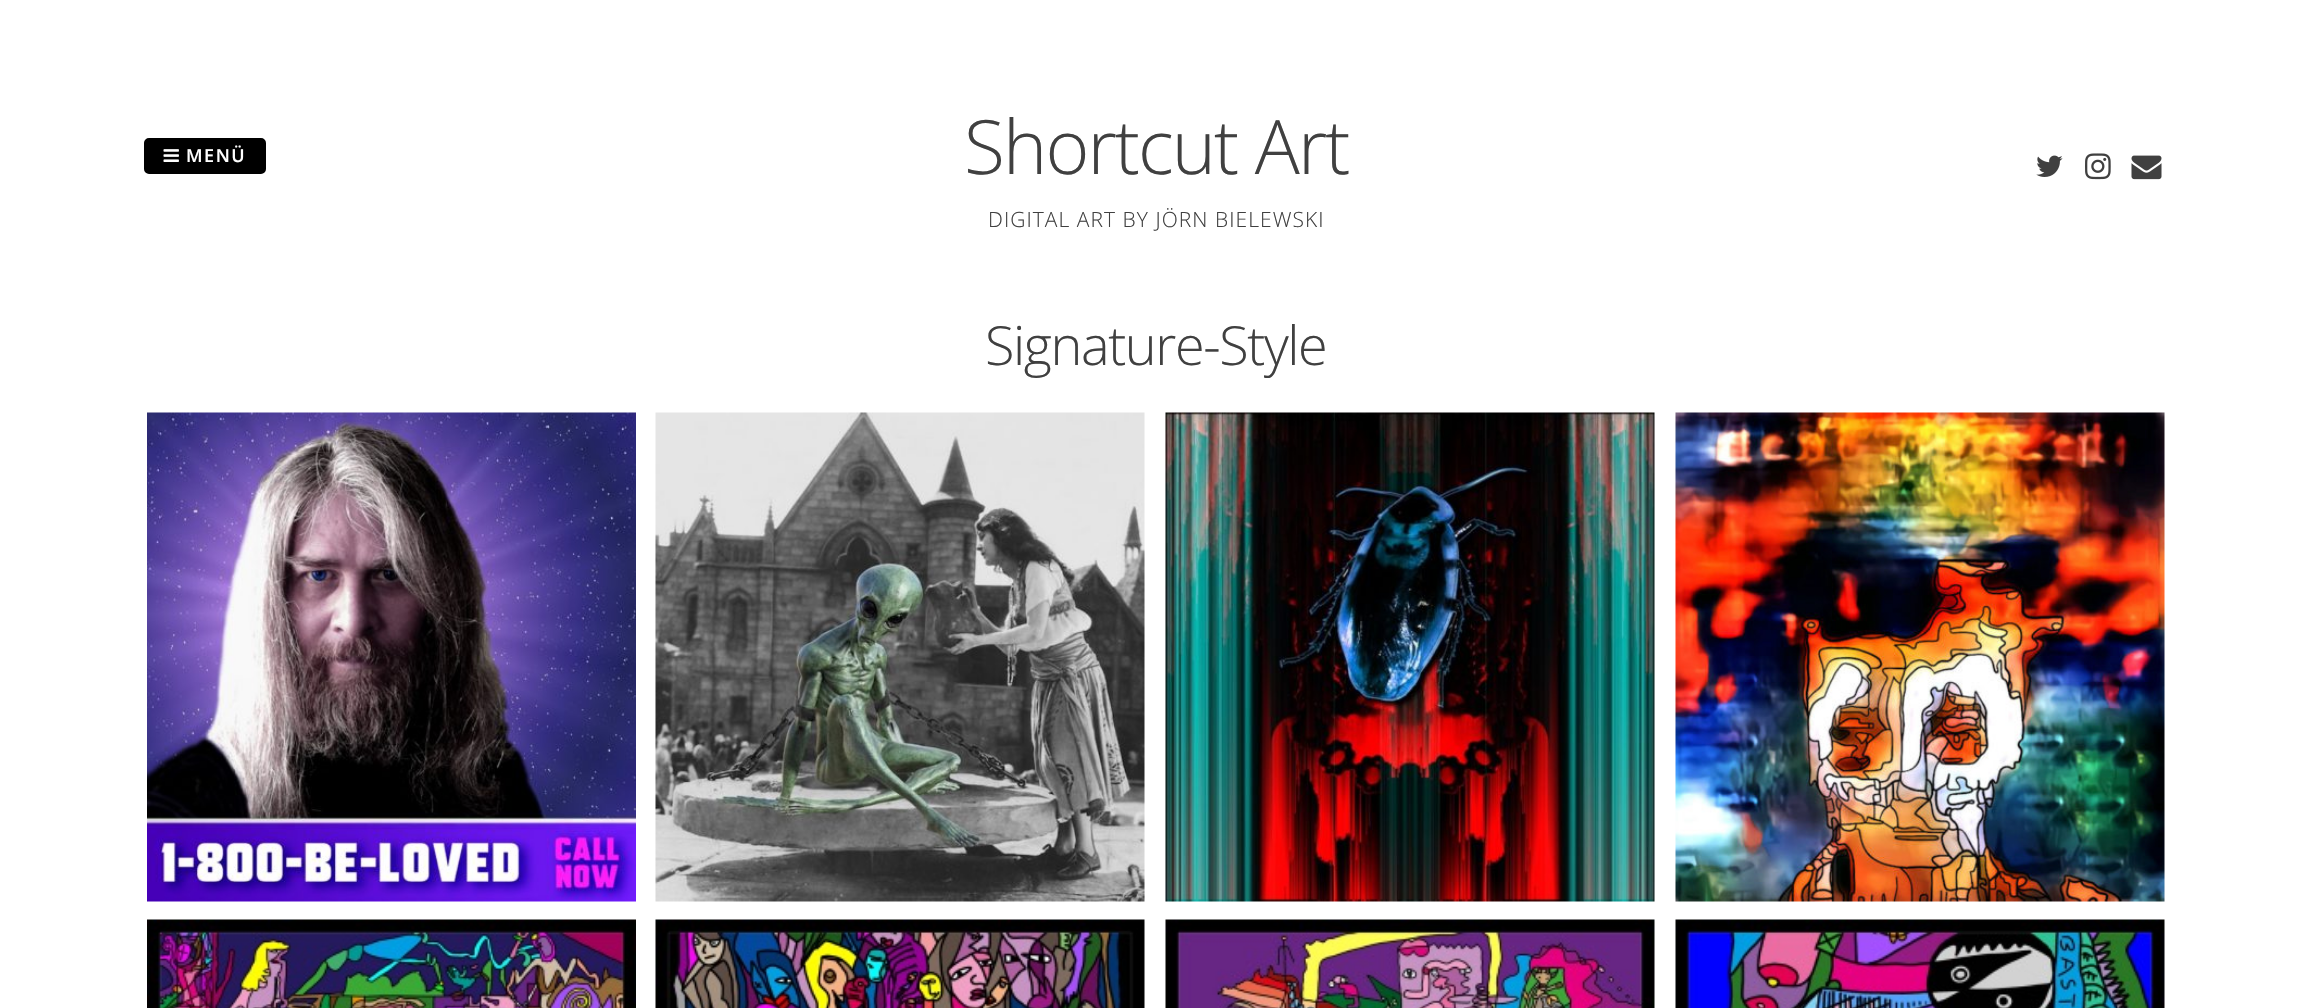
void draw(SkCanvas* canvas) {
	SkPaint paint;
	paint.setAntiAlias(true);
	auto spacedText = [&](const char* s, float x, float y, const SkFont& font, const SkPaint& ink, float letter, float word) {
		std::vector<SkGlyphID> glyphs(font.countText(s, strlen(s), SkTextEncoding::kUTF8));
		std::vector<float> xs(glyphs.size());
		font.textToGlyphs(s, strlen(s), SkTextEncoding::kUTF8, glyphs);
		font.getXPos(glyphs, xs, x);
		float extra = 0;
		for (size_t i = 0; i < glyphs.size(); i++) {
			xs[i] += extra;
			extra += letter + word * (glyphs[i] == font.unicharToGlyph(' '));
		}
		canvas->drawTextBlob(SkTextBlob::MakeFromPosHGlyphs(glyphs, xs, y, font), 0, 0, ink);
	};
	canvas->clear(0xffffffff);
	paint.setColor(0xff000000);
	canvas->drawRoundRect(SkRect::MakeXYWH(145, 139, 120, 34), 4, 4, paint);
	paint.setStroke(true);
	paint.setStrokeWidth(2);
	canvas->drawRoundRect(SkRect::MakeXYWH(145, 139, 120, 34), 4, 4, paint);
	canvas->drawImageRect(SkImages::DeferredFromEncodedData(SkData::MakeFromFileName("img1.png")), SkRect::MakeXYWH(163, 149, 16, 13), SkSamplingOptions());
	SkFont f1(fontMgr->matchFamilyStyle("Open Sans", SkFontStyle(600, SkFontStyle::kNormal_Width, SkFontStyle::kUpright_Slant)), 18);
	f1.setSubpixel(true);
	paint.setStroke(false);
	paint.setColor(0xffffffff);
	spacedText("MENÜ", 186, 162, f1, paint, 1.5, 0);
	SkFont f2(fontMgr->matchFamilyStyle("Open Sans", SkFontStyle(300, SkFontStyle::kNormal_Width, SkFontStyle::kUpright_Slant)), 75);
	f2.setSubpixel(true);
	paint.setColor(0xff404040);
	spacedText("Shortcut Art", 964, 174, f2, paint, -1.9, 0);
	SkFont f3(fontMgr->matchFamilyStyle("Open Sans", SkFontStyle(300, SkFontStyle::kNormal_Width, SkFontStyle::kUpright_Slant)), 21);
	f3.setSubpixel(true);
	spacedText("DIGITAL ART BY JÖRN BIELEWSKI", 988, 227, f3, paint, 1.05, 0);
	canvas->drawImageRect(SkImages::DeferredFromEncodedData(SkData::MakeFromFileName("img2.png")), SkRect::MakeXYWH(2036, 155, 27, 22), SkSamplingOptions());
	canvas->drawImageRect(SkImages::DeferredFromEncodedData(SkData::MakeFromFileName("img3.png")), SkRect::MakeXYWH(2085, 153, 26, 27), SkSamplingOptions());
	canvas->drawImageRect(SkImages::DeferredFromEncodedData(SkData::MakeFromFileName("img4.png")), SkRect::MakeXYWH(2131, 155, 31, 25), SkSamplingOptions());
	SkFont f4(fontMgr->matchFamilyStyle("Open Sans", SkFontStyle(300, SkFontStyle::kNormal_Width, SkFontStyle::kUpright_Slant)), 54);
	f4.setSubpixel(true);
	spacedText("Signature-Style", 985, 365, f4, paint, -1.4, 0);
	canvas->drawImageRect(SkImages::DeferredFromEncodedData(SkData::MakeFromFileName("img5.png")), SkRect::MakeXYWH(147, 412, 489, 490), SkSamplingOptions());
	canvas->drawImageRect(SkImages::DeferredFromEncodedData(SkData::MakeFromFileName("img6.png")), SkRect::MakeXYWH(655, 412, 490, 490), SkSamplingOptions());
	canvas->drawImageRect(SkImages::DeferredFromEncodedData(SkData::MakeFromFileName("img7.png")), SkRect::MakeXYWH(1165, 412, 490, 490), SkSamplingOptions());
	canvas->drawImageRect(SkImages::DeferredFromEncodedData(SkData::MakeFromFileName("img8.png")), SkRect::MakeXYWH(1675, 412, 490, 490), SkSamplingOptions());
	canvas->drawImageRect(SkImages::DeferredFromEncodedData(SkData::MakeFromFileName("img9.png")), SkRect::MakeXYWH(147, 919, 489, 89), SkSamplingOptions());
	canvas->drawImageRect(SkImages::DeferredFromEncodedData(SkData::MakeFromFileName("img10.png")), SkRect::MakeXYWH(655, 919, 490, 89), SkSamplingOptions());
	canvas->drawImageRect(SkImages::DeferredFromEncodedData(SkData::MakeFromFileName("img11.png")), SkRect::MakeXYWH(1165, 919, 490, 89), SkSamplingOptions());
	canvas->drawImageRect(SkImages::DeferredFromEncodedData(SkData::MakeFromFileName("img12.png")), SkRect::MakeXYWH(1675, 919, 490, 89), SkSamplingOptions());
}
